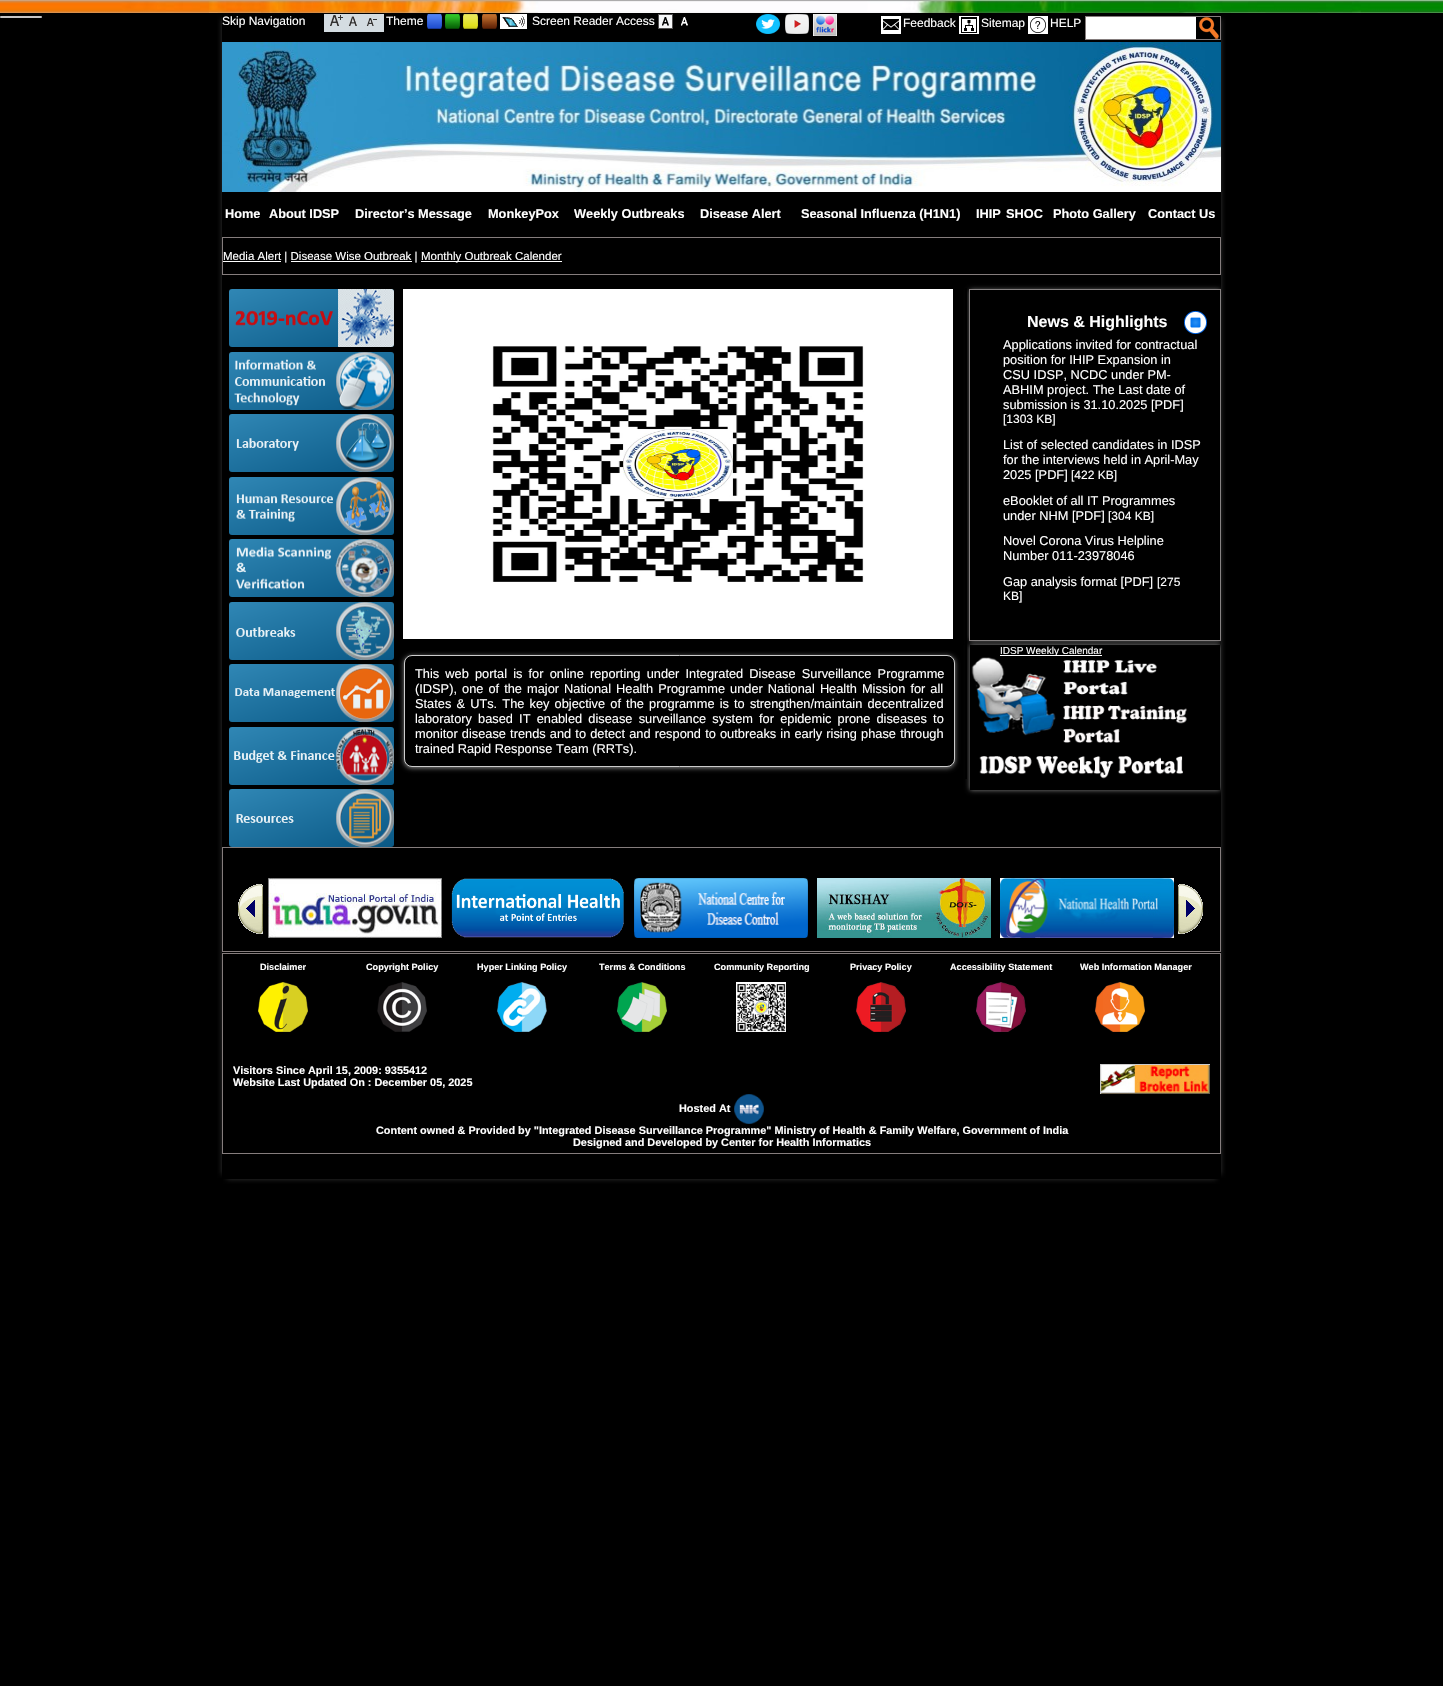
void draw(SkCanvas* canvas) {
	SkPaint paint;
	paint.setAntiAlias(true);
	auto spacedText = [&](const char* s, float x, float y, const SkFont& font, const SkPaint& ink, float letter, float word) {
		std::vector<SkGlyphID> glyphs(font.countText(s, strlen(s), SkTextEncoding::kUTF8));
		std::vector<float> xs(glyphs.size());
		font.textToGlyphs(s, strlen(s), SkTextEncoding::kUTF8, glyphs);
		font.getXPos(glyphs, xs, x);
		float extra = 0;
		for (size_t i = 0; i < glyphs.size(); i++) {
			xs[i] += extra;
			extra += letter + word * (glyphs[i] == font.unicharToGlyph(' '));
		}
		canvas->drawTextBlob(SkTextBlob::MakeFromPosHGlyphs(glyphs, xs, y, font), 0, 0, ink);
	};
	auto svgPath = [&](const char* data, bool evenOdd = false) {
		SkPath result = *SkParsePath::FromSVGString(data);
		if (evenOdd) result.setFillType(SkPathFillType::kEvenOdd);
		return result;
	};
	canvas->clear(0xff000000);
	canvas->drawImageRect(SkImages::DeferredFromEncodedData(SkData::MakeFromFileName("img1.png")), SkRect::MakeXYWH(0, 0, 1443, 13), SkSamplingOptions());
	paint.setColor(0xffc5c5c5);
	canvas->drawRoundRect(SkRect::MakeXYWH(0, 16, 42, 2), 1, 1, paint);
	canvas->save();
	canvas->clipRect(SkRect::MakeXYWH(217, 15, 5, 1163));
	paint.setColor(0xff333333);
	paint.setMaskFilter(SkMaskFilter::MakeBlur(kNormal_SkBlurStyle, 2.5));
	canvas->drawRect(SkRect::MakeXYWH(222, 19, 989, 1155), paint);
	paint.setMaskFilter(nullptr);
	canvas->restore();
	canvas->save();
	canvas->clipRect(SkRect::MakeXYWH(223, 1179, 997, 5));
	paint.setMaskFilter(SkMaskFilter::MakeBlur(kNormal_SkBlurStyle, 2.5));
	canvas->drawRect(SkRect::MakeXYWH(227, 24, 989, 1155), paint);
	paint.setMaskFilter(nullptr);
	canvas->restore();
	canvas->save();
	canvas->clipRect(SkRect::MakeXYWH(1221, 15, 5, 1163));
	paint.setMaskFilter(SkMaskFilter::MakeBlur(kNormal_SkBlurStyle, 2.5));
	canvas->drawRect(SkRect::MakeXYWH(232, 19, 989, 1155), paint);
	paint.setMaskFilter(nullptr);
	canvas->restore();
	SkFont f1(fontMgr->matchFamilyStyle("Liberation Sans", SkFontStyle::Normal()), 12);
	f1.setSubpixel(true);
	paint.setColor(0xffffffff);
	canvas->drawString("Skip Navigation", 222, 25, f1, paint);
	paint.setColor(0xffd4dce1);
	canvas->drawRect(SkRect::MakeXYWH(324, 14, 60, 18), paint);
	canvas->drawImageRect(SkImages::DeferredFromEncodedData(SkData::MakeFromFileName("img2.png")), SkRect::MakeXYWH(330, 15, 13, 11), SkSamplingOptions());
	canvas->drawImageRect(SkImages::DeferredFromEncodedData(SkData::MakeFromFileName("img3.png")), SkRect::MakeXYWH(348, 16, 9, 10), SkSamplingOptions());
	canvas->drawImageRect(SkImages::DeferredFromEncodedData(SkData::MakeFromFileName("img4.png")), SkRect::MakeXYWH(366, 18, 11, 8), SkSamplingOptions());
	paint.setColor(0xffffffff);
	canvas->drawString("Theme", 386, 25, f1, paint);
	canvas->drawImageRect(SkImages::DeferredFromEncodedData(SkData::MakeFromFileName("img5.png")), SkRect::MakeXYWH(427, 14, 15, 15), SkSamplingOptions());
	canvas->drawImageRect(SkImages::DeferredFromEncodedData(SkData::MakeFromFileName("img6.png")), SkRect::MakeXYWH(445, 14, 15, 15), SkSamplingOptions());
	canvas->drawImageRect(SkImages::DeferredFromEncodedData(SkData::MakeFromFileName("img7.png")), SkRect::MakeXYWH(463, 14, 15, 15), SkSamplingOptions());
	canvas->drawImageRect(SkImages::DeferredFromEncodedData(SkData::MakeFromFileName("img8.png")), SkRect::MakeXYWH(482, 14, 15, 15), SkSamplingOptions());
	canvas->drawRect(SkRect::MakeXYWH(500, 14, 27, 15), paint);
	canvas->drawImageRect(SkImages::DeferredFromEncodedData(SkData::MakeFromFileName("img9.png")), SkRect::MakeXYWH(658, 14, 15, 15), SkSamplingOptions());
	canvas->drawImageRect(SkImages::DeferredFromEncodedData(SkData::MakeFromFileName("img10.png")), SkRect::MakeXYWH(502, 16, 23, 11), SkSamplingOptions());
	canvas->drawString("Screen Reader Access", 532, 25, f1, paint);
	canvas->drawImageRect(SkImages::DeferredFromEncodedData(SkData::MakeFromFileName("img11.png")), SkRect::MakeXYWH(681, 16, 7, 10), SkSamplingOptions());
	canvas->drawImageRect(SkImages::DeferredFromEncodedData(SkData::MakeFromFileName("img12.png")), SkRect::MakeXYWH(756, 14, 24, 20), SkSamplingOptions());
	canvas->drawImageRect(SkImages::DeferredFromEncodedData(SkData::MakeFromFileName("img13.png")), SkRect::MakeXYWH(785, 14, 24, 20), SkSamplingOptions());
	canvas->drawImageRect(SkImages::DeferredFromEncodedData(SkData::MakeFromFileName("img14.png")), SkRect::MakeXYWH(813, 14, 24, 22), SkSamplingOptions());
	canvas->drawRect(SkRect::MakeXYWH(881, 16, 20, 18), paint);
	canvas->drawImageRect(SkImages::DeferredFromEncodedData(SkData::MakeFromFileName("img15.png")), SkRect::MakeXYWH(883, 19, 16, 11), SkSamplingOptions());
	canvas->drawString("Feedback", 903, 27, f1, paint);
	canvas->drawRect(SkRect::MakeXYWH(959, 16, 20, 18), paint);
	canvas->drawImageRect(SkImages::DeferredFromEncodedData(SkData::MakeFromFileName("img16.png")), SkRect::MakeXYWH(961, 17, 16, 16), SkSamplingOptions());
	canvas->drawString("Sitemap", 981, 27, f1, paint);
	canvas->drawRect(SkRect::MakeXYWH(1028, 16, 20, 18), paint);
	canvas->drawImageRect(SkImages::DeferredFromEncodedData(SkData::MakeFromFileName("img17.png")), SkRect::MakeXYWH(1030, 17, 16, 16), SkSamplingOptions());
	canvas->drawString("HELP", 1050, 27, f1, paint);
	paint.setStroke(true);
	paint.setStrokeWidth(1);
	paint.setColor(0xff857d7d);
	canvas->drawRect(SkRect::MakeXYWH(1085.5, 16.5, 135, 23), paint);
	paint.setStroke(false);
	paint.setColor(0xffffffff);
	canvas->drawRect(SkRect::MakeXYWH(1086, 17, 110, 22), paint);
	canvas->drawImageRect(SkImages::DeferredFromEncodedData(SkData::MakeFromFileName("img18.png")), SkRect::MakeXYWH(1199, 17, 20, 22), SkSamplingOptions());
	canvas->drawImageRect(SkImages::DeferredFromEncodedData(SkData::MakeFromFileName("img19.png")), SkRect::MakeXYWH(222, 42, 999, 150), SkSamplingOptions());
	SkFont f2(fontMgr->matchFamilyStyle("Liberation Sans", SkFontStyle::Bold()), 12.75);
	f2.setSubpixel(true);
	canvas->drawString("Home", 225, 218, f2, paint);
	canvas->drawString("About IDSP", 269, 218, f2, paint);
	canvas->drawString("Director’s Message", 355, 218, f2, paint);
	canvas->drawString("MonkeyPox", 488, 218, f2, paint);
	canvas->drawString("Weekly Outbreaks", 574, 218, f2, paint);
	canvas->drawString("Disease Alert", 700, 218, f2, paint);
	canvas->drawString("Seasonal Influenza (H1N1)", 801, 218, f2, paint);
	canvas->drawString("IHIP", 976, 218, f2, paint);
	canvas->drawString("SHOC", 1006, 218, f2, paint);
	canvas->drawString("Photo Gallery", 1053, 218, f2, paint);
	canvas->drawString("Contact Us", 1148, 218, f2, paint);
	paint.setStroke(true);
	paint.setColor(0xff857d7d);
	canvas->drawRect(SkRect::MakeXYWH(222.5, 237.5, 998, 37), paint);
	paint.setStroke(false);
	paint.setColor(0xffffffff);
	canvas->drawRect(SkRect::MakeXYWH(223, 261, 58, 1), paint);
	SkFont f3(fontMgr->matchFamilyStyle("Liberation Sans", SkFontStyle::Normal()), 11.5);
	f3.setSubpixel(true);
	canvas->drawString("Media Alert | Disease Wise Outbreak |", 223, 260, f3, paint);
	canvas->drawRect(SkRect::MakeXYWH(421, 261, 141, 1), paint);
	canvas->drawString("Monthly Outbreak Calender", 421, 260, f3, paint);
	canvas->drawRect(SkRect::MakeXYWH(291, 261, 121, 1), paint);
	{
		const SkColor colors[] = {0xff3087b5, 0xff095885};
		const float stops[] = {0, 1};
		const SkPoint ends[] = {{293, 266}, {330, 370}};
		paint.setShader(SkGradientShader::MakeLinear(ends, colors, stops, 2, SkTileMode::kClamp));
		paint.setAlpha(255);
	}
	canvas->drawRoundRect(SkRect::MakeXYWH(229, 289, 165, 58), 3, 3, paint);
	canvas->drawImageRect(SkImages::DeferredFromEncodedData(SkData::MakeFromFileName("img20.png")), SkRect::MakeXYWH(235, 289, 159, 58), SkSamplingOptions());
	{
		const SkColor colors[] = {0xff3087b5, 0xff095885};
		const float stops[] = {0, 1};
		const SkPoint ends[] = {{293, 329}, {330, 433}};
		paint.setShader(SkGradientShader::MakeLinear(ends, colors, stops, 2, SkTileMode::kClamp));
		paint.setAlpha(255);
	}
	canvas->drawRoundRect(SkRect::MakeXYWH(229, 352, 165, 58), 3, 3, paint);
	canvas->drawImageRect(SkImages::DeferredFromEncodedData(SkData::MakeFromFileName("img21.png")), SkRect::MakeXYWH(234, 352, 160, 58), SkSamplingOptions());
	{
		const SkColor colors[] = {0xff3087b5, 0xff095885};
		const float stops[] = {0, 1};
		const SkPoint ends[] = {{293, 391}, {330, 495}};
		paint.setShader(SkGradientShader::MakeLinear(ends, colors, stops, 2, SkTileMode::kClamp));
		paint.setAlpha(255);
	}
	canvas->drawRoundRect(SkRect::MakeXYWH(229, 414, 165, 58), 3, 3, paint);
	canvas->drawImageRect(SkImages::DeferredFromEncodedData(SkData::MakeFromFileName("img22.png")), SkRect::MakeXYWH(236, 414, 158, 58), SkSamplingOptions());
	{
		const SkColor colors[] = {0xff3087b5, 0xff095885};
		const float stops[] = {0, 1};
		const SkPoint ends[] = {{293, 454}, {330, 558}};
		paint.setShader(SkGradientShader::MakeLinear(ends, colors, stops, 2, SkTileMode::kClamp));
		paint.setAlpha(255);
	}
	canvas->drawRoundRect(SkRect::MakeXYWH(229, 477, 165, 58), 3, 3, paint);
	canvas->drawImageRect(SkImages::DeferredFromEncodedData(SkData::MakeFromFileName("img23.png")), SkRect::MakeXYWH(236, 477, 158, 58), SkSamplingOptions());
	{
		const SkColor colors[] = {0xff3087b5, 0xff095885};
		const float stops[] = {0, 1};
		const SkPoint ends[] = {{293, 516}, {330, 620}};
		paint.setShader(SkGradientShader::MakeLinear(ends, colors, stops, 2, SkTileMode::kClamp));
		paint.setAlpha(255);
	}
	canvas->drawRoundRect(SkRect::MakeXYWH(229, 539, 165, 58), 3, 3, paint);
	canvas->drawImageRect(SkImages::DeferredFromEncodedData(SkData::MakeFromFileName("img24.png")), SkRect::MakeXYWH(236, 539, 158, 58), SkSamplingOptions());
	{
		const SkColor colors[] = {0xff3087b5, 0xff095885};
		const float stops[] = {0, 1};
		const SkPoint ends[] = {{293, 579}, {330, 683}};
		paint.setShader(SkGradientShader::MakeLinear(ends, colors, stops, 2, SkTileMode::kClamp));
		paint.setAlpha(255);
	}
	canvas->drawRoundRect(SkRect::MakeXYWH(229, 602, 165, 58), 3, 3, paint);
	canvas->drawImageRect(SkImages::DeferredFromEncodedData(SkData::MakeFromFileName("img25.png")), SkRect::MakeXYWH(236, 602, 158, 58), SkSamplingOptions());
	{
		const SkColor colors[] = {0xff3087b5, 0xff095885};
		const float stops[] = {0, 1};
		const SkPoint ends[] = {{293, 641}, {330, 745}};
		paint.setShader(SkGradientShader::MakeLinear(ends, colors, stops, 2, SkTileMode::kClamp));
		paint.setAlpha(255);
	}
	canvas->drawRoundRect(SkRect::MakeXYWH(229, 664, 165, 58), 3, 3, paint);
	canvas->drawImageRect(SkImages::DeferredFromEncodedData(SkData::MakeFromFileName("img26.png")), SkRect::MakeXYWH(235, 664, 159, 58), SkSamplingOptions());
	{
		const SkColor colors[] = {0xff3087b5, 0xff095885};
		const float stops[] = {0, 1};
		const SkPoint ends[] = {{293, 704}, {330, 808}};
		paint.setShader(SkGradientShader::MakeLinear(ends, colors, stops, 2, SkTileMode::kClamp));
		paint.setAlpha(255);
	}
	canvas->drawRoundRect(SkRect::MakeXYWH(229, 727, 165, 58), 3, 3, paint);
	canvas->drawImageRect(SkImages::DeferredFromEncodedData(SkData::MakeFromFileName("img27.png")), SkRect::MakeXYWH(234, 727, 160, 58), SkSamplingOptions());
	{
		const SkColor colors[] = {0xff3087b5, 0xff095885};
		const float stops[] = {0, 1};
		const SkPoint ends[] = {{293, 766}, {330, 870}};
		paint.setShader(SkGradientShader::MakeLinear(ends, colors, stops, 2, SkTileMode::kClamp));
		paint.setAlpha(255);
	}
	canvas->drawRoundRect(SkRect::MakeXYWH(229, 789, 165, 58), 3, 3, paint);
	canvas->drawImageRect(SkImages::DeferredFromEncodedData(SkData::MakeFromFileName("img28.png")), SkRect::MakeXYWH(236, 789, 158, 58), SkSamplingOptions());
	paint.setStroke(true);
	paint.setShader(nullptr);
	paint.setColor(0xff857d7d);
	canvas->drawRect(SkRect::MakeXYWH(969.5, 289.5, 251, 351), paint);
	canvas->save();
	canvas->clipRect(SkRect::MakeXYWH(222, 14, 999, 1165));
	paint.setStroke(false);
	paint.setColor(0xff888888);
	paint.setMaskFilter(SkMaskFilter::MakeBlur(kNormal_SkBlurStyle, 2.5));
	canvas->drawRect(SkRect::MakeXYWH(970, 290, 250, 350), paint);
	paint.setMaskFilter(nullptr);
	canvas->restore();
	canvas->save();
	canvas->clipRect(SkRect::MakeXYWH(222, 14, 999, 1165));
	canvas->clipPath(svgPath("M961 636H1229V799H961ZM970 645H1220V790H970Z", true), true);
	paint.setMaskFilter(SkMaskFilter::MakeBlur(kNormal_SkBlurStyle, 2.5));
	canvas->drawRect(SkRect::MakeXYWH(970, 645, 250, 145), paint);
	paint.setMaskFilter(nullptr);
	canvas->restore();
	paint.setColor(0xff000000);
	canvas->drawRect(SkRect::MakeXYWH(970, 290, 250, 350), paint);
	SkFont f4(fontMgr->matchFamilyStyle("Liberation Sans", SkFontStyle::Bold()), 16);
	f4.setSubpixel(true);
	paint.setColor(0xffffffff);
	canvas->drawString("News & Highlights", 1027, 327, f4, paint);
	canvas->drawImageRect(SkImages::DeferredFromEncodedData(SkData::MakeFromFileName("img29.png")), SkRect::MakeXYWH(1184, 311, 23, 23), SkSamplingOptions());
	SkFont f5(fontMgr->matchFamilyStyle("Liberation Sans", SkFontStyle::Normal()), 12.8);
	f5.setSubpixel(true);
	canvas->drawString("Applications invited for contractual", 1003, 349, f5, paint);
	canvas->drawString("position for IHIP Expansion in", 1003, 364, f5, paint);
	canvas->drawString("CSU IDSP, NCDC under PM-", 1003, 379, f5, paint);
	canvas->drawString("ABHIM project. The Last date of", 1003, 394, f5, paint);
	canvas->drawString("submission is 31.10.2025 [PDF]", 1003, 409, f5, paint);
	canvas->drawString("[1303 KB]", 1003, 423, f1, paint);
	canvas->drawString("List of selected candidates in IDSP", 1003, 449, f5, paint);
	canvas->drawString("for the interviews held in April-May", 1003, 464, f5, paint);
	canvas->drawString("2025 [PDF]", 1003, 479, f5, paint);
	canvas->drawString("[422 KB]", 1071, 479, f1, paint);
	canvas->drawString("eBooklet of all IT Programmes", 1003, 505, f5, paint);
	canvas->drawString("under NHM [PDF]", 1003, 520, f5, paint);
	canvas->drawString("[304 KB]", 1108, 520, f1, paint);
	canvas->drawString("Novel Corona Virus Helpline", 1003, 545, f5, paint);
	canvas->drawString("Number 011-23978046", 1003, 560, f5, paint);
	canvas->drawString("Gap analysis format [PDF]", 1003, 586, f5, paint);
	canvas->drawString("[275", 1157, 586, f1, paint);
	canvas->drawString("KB]", 1003, 600, f1, paint);
	canvas->drawRect(SkRect::MakeXYWH(1000, 655, 102, 1), paint);
	SkFont f6(fontMgr->matchFamilyStyle("Liberation Sans", SkFontStyle::Normal()), 10);
	f6.setSubpixel(true);
	canvas->drawString("IDSP Weekly Calendar", 1000, 654, f6, paint);
	canvas->drawImageRect(SkImages::DeferredFromEncodedData(SkData::MakeFromFileName("img30.png")), SkRect::MakeXYWH(971, 657, 216, 122), SkSamplingOptions());
	paint.setColor(0xff000000);
	canvas->drawRect(SkRect::MakeXYWH(965, 288, 2, 491), paint);
	canvas->drawImageRect(SkImages::DeferredFromEncodedData(SkData::MakeFromFileName("img31.png")), SkRect::MakeXYWH(403, 289, 550, 350), SkSamplingOptions());
	paint.setColor(0xff888888);
	paint.setMaskFilter(SkMaskFilter::MakeBlur(kNormal_SkBlurStyle, 2.5));
	canvas->drawRoundRect(SkRect::MakeXYWH(404, 656, 551, 112), 8, 8, paint);
	paint.setMaskFilter(nullptr);
	paint.setColor(0xff000000);
	canvas->drawRoundRect(SkRect::MakeXYWH(404.5, 655.5, 550, 111), 7.5, 7.5, paint);
	paint.setStroke(true);
	paint.setColor(0xffcccccc);
	canvas->drawRoundRect(SkRect::MakeXYWH(404.5, 655.5, 550, 111), 7.5, 7.5, paint);
	paint.setStroke(false);
	paint.setColor(0xffffffff);
	spacedText("This web portal is for online reporting under Integrated Disease Surveillance Programme", 415, 678, f5, paint, 0, 2.6);
	spacedText("(IDSP), one of the major National Health Programme under National Health Mission for all", 415, 693, f5, paint, 0, 1.5);
	spacedText("States & UTs. The key objective of the programme is to strengthen/maintain decentralized", 415, 708, f5, paint, 0, 1.6);
	spacedText("laboratory based IT enabled disease surveillance system for epidemic prone diseases to", 415, 723, f5, paint, 0, 2.6);
	spacedText("monitor disease trends and to detect and respond to outbreaks in early rising phase through", 415, 738, f5, paint, 0, 0.6);
	canvas->drawString("trained Rapid Response Team (RRTs).", 415, 753, f5, paint);
	paint.setStroke(true);
	paint.setColor(0xff857d7d);
	canvas->drawRect(SkRect::MakeXYWH(222.5, 847.5, 998, 104), paint);
	canvas->drawImageRect(SkImages::DeferredFromEncodedData(SkData::MakeFromFileName("img32.png")), SkRect::MakeXYWH(268, 878, 174, 60), SkSamplingOptions());
	canvas->drawImageRect(SkImages::DeferredFromEncodedData(SkData::MakeFromFileName("img33.png")), SkRect::MakeXYWH(451, 878, 173, 60), SkSamplingOptions());
	canvas->drawImageRect(SkImages::DeferredFromEncodedData(SkData::MakeFromFileName("img34.png")), SkRect::MakeXYWH(634, 878, 174, 60), SkSamplingOptions());
	canvas->drawImageRect(SkImages::DeferredFromEncodedData(SkData::MakeFromFileName("img35.png")), SkRect::MakeXYWH(817, 878, 174, 60), SkSamplingOptions());
	canvas->drawImageRect(SkImages::DeferredFromEncodedData(SkData::MakeFromFileName("img36.png")), SkRect::MakeXYWH(1000, 878, 174, 60), SkSamplingOptions());
	canvas->drawImageRect(SkImages::DeferredFromEncodedData(SkData::MakeFromFileName("img37.png")), SkRect::MakeXYWH(238, 884, 25, 50), SkSamplingOptions());
	canvas->drawImageRect(SkImages::DeferredFromEncodedData(SkData::MakeFromFileName("img38.png")), SkRect::MakeXYWH(1178, 884, 25, 50), SkSamplingOptions());
	canvas->drawRect(SkRect::MakeXYWH(222.5, 953.5, 998, 200), paint);
	SkFont f7(fontMgr->matchFamilyStyle("Liberation Sans", SkFontStyle::Bold()), 9.1);
	f7.setSubpixel(true);
	paint.setStroke(false);
	paint.setColor(0xffffffff);
	canvas->drawString("Disclaimer", 260, 970, f7, paint);
	canvas->drawImageRect(SkImages::DeferredFromEncodedData(SkData::MakeFromFileName("img39.png")), SkRect::MakeXYWH(258, 982, 50, 50), SkSamplingOptions());
	canvas->drawString("Copyright Policy", 366, 970, f7, paint);
	canvas->drawImageRect(SkImages::DeferredFromEncodedData(SkData::MakeFromFileName("img40.png")), SkRect::MakeXYWH(377, 982, 50, 50), SkSamplingOptions());
	canvas->drawString("Hyper Linking Policy", 477, 970, f7, paint);
	canvas->drawImageRect(SkImages::DeferredFromEncodedData(SkData::MakeFromFileName("img41.png")), SkRect::MakeXYWH(497, 982, 50, 50), SkSamplingOptions());
	canvas->drawString("Terms & Conditions", 599, 970, f7, paint);
	canvas->drawImageRect(SkImages::DeferredFromEncodedData(SkData::MakeFromFileName("img42.png")), SkRect::MakeXYWH(617, 982, 50, 50), SkSamplingOptions());
	canvas->drawString("Community Reporting", 714, 970, f7, paint);
	canvas->drawImageRect(SkImages::DeferredFromEncodedData(SkData::MakeFromFileName("img43.png")), SkRect::MakeXYWH(736, 982, 50, 50), SkSamplingOptions());
	canvas->drawString("Privacy Policy", 850, 970, f7, paint);
	canvas->drawImageRect(SkImages::DeferredFromEncodedData(SkData::MakeFromFileName("img44.png")), SkRect::MakeXYWH(856, 982, 50, 50), SkSamplingOptions());
	canvas->drawString("Accessibility Statement", 950, 970, f7, paint);
	canvas->drawImageRect(SkImages::DeferredFromEncodedData(SkData::MakeFromFileName("img45.png")), SkRect::MakeXYWH(976, 982, 50, 50), SkSamplingOptions());
	canvas->drawString("Web Information Manager", 1080, 970, f7, paint);
	canvas->drawImageRect(SkImages::DeferredFromEncodedData(SkData::MakeFromFileName("img46.png")), SkRect::MakeXYWH(1095, 982, 50, 50), SkSamplingOptions());
	SkFont f8(fontMgr->matchFamilyStyle("Liberation Sans", SkFontStyle::Bold()), 10.88);
	f8.setSubpixel(true);
	canvas->drawString("Visitors Since April 15, 2009: 9355412", 233, 1074, f8, paint);
	canvas->drawString("Website Last Updated On : December 05, 2025", 233, 1086, f8, paint);
	canvas->drawImageRect(SkImages::DeferredFromEncodedData(SkData::MakeFromFileName("img47.png")), SkRect::MakeXYWH(1100, 1064, 110, 30), SkSamplingOptions());
	canvas->drawString("Hosted At", 679, 1112, f8, paint);
	canvas->drawImageRect(SkImages::DeferredFromEncodedData(SkData::MakeFromFileName("img48.png")), SkRect::MakeXYWH(734, 1094, 30, 30), SkSamplingOptions());
	canvas->drawString("Content owned & Provided by \"Integrated Disease Surveillance Programme\" Ministry of Health & Family Welfare, Government of India", 376, 1134, f8, paint);
	canvas->drawString("Designed and Developed by Center for Health Informatics", 573, 1146, f8, paint);
}
